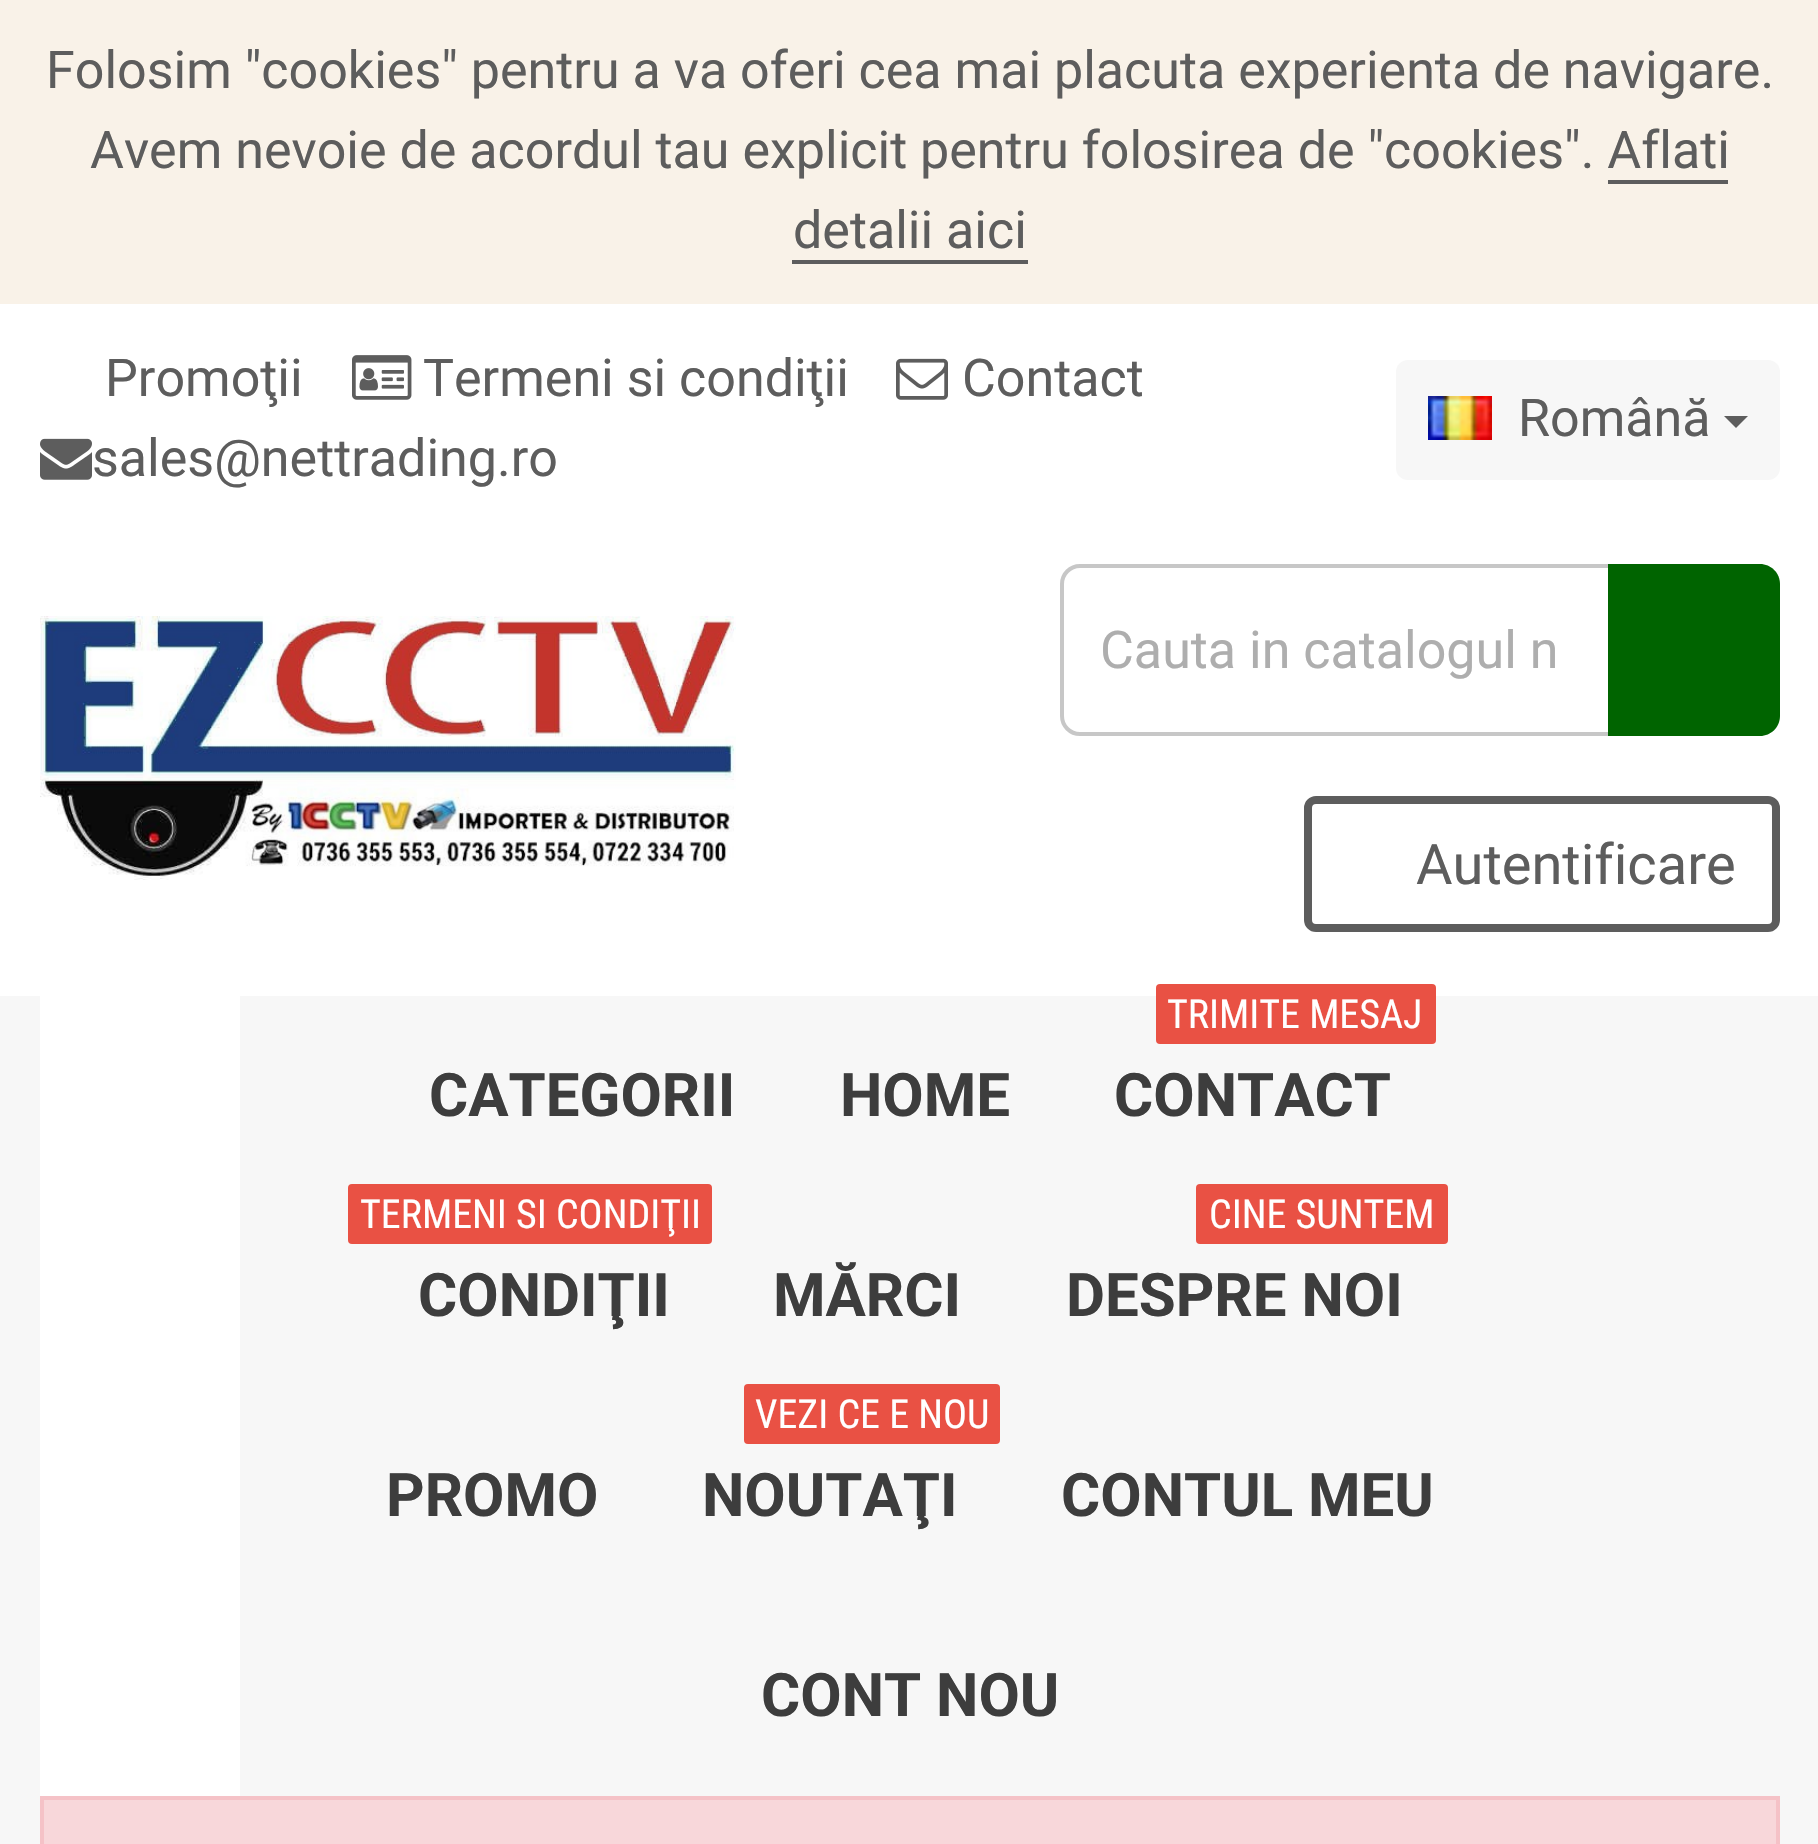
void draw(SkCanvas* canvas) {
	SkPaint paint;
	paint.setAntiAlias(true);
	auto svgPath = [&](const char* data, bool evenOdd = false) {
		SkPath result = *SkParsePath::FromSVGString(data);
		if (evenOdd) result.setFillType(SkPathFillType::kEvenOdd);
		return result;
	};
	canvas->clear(0xffffffff);
	paint.setColor(0xfff9f2e8);
	canvas->drawRect(SkRect::MakeXYWH(0, 0, 1818, 304), paint);
	SkFont f1(fontMgr->matchFamilyStyle("Roboto", SkFontStyle::Normal()), 52);
	f1.setSubpixel(true);
	paint.setColor(0xff5d5d5d);
	canvas->drawString("Folosim \"cookies\" pentru a va oferi cea mai placuta experienta de navigare.", 46, 88, f1, paint);
	canvas->drawString("Avem nevoie de acordul tau explicit pentru folosirea de \"cookies\". Aflati", 90, 168, f1, paint);
	canvas->drawString("detalii aici", 793, 248, f1, paint);
	canvas->drawRect(SkRect::MakeXYWH(1608, 180, 120, 4), paint);
	canvas->drawRect(SkRect::MakeXYWH(792, 260, 236, 4), paint);
	canvas->drawString("Promoţii", 105, 396, f1, paint);
	canvas->drawImageRect(SkImages::DeferredFromEncodedData(SkData::MakeFromFileName("img1.png")), SkRect::MakeXYWH(352, 355, 60, 45), SkSamplingOptions());
	canvas->drawString("Termeni si condiţii", 423, 396, f1, paint);
	canvas->drawImageRect(SkImages::DeferredFromEncodedData(SkData::MakeFromFileName("img2.png")), SkRect::MakeXYWH(896, 358, 52, 42), SkSamplingOptions());
	canvas->drawString("Contact", 962, 396, f1, paint);
	canvas->drawImageRect(SkImages::DeferredFromEncodedData(SkData::MakeFromFileName("img3.png")), SkRect::MakeXYWH(40, 438, 52, 42), SkSamplingOptions());
	canvas->drawString("sales@nettrading.ro", 92, 476, f1, paint);
	paint.setColor(0xfff7f7f7);
	canvas->drawRoundRect(SkRect::MakeXYWH(1396, 360, 384, 120), 12, 12, paint);
	canvas->drawImageRect(SkImages::DeferredFromEncodedData(SkData::MakeFromFileName("img4.png")), SkRect::MakeXYWH(1428, 396, 64, 44), SkSamplingOptions());
	paint.setColor(0xff5d5d5d);
	canvas->drawString("Română", 1518, 436, f1, paint);
	canvas->drawPath(svgPath("M1724 416H1748L1736 428Z"), paint);
	canvas->drawImageRect(SkImages::DeferredFromEncodedData(SkData::MakeFromFileName("img5.png")), SkRect::MakeXYWH(40, 616, 696, 264), SkSamplingOptions());
	paint.setStroke(true);
	paint.setStrokeWidth(4);
	paint.setColor(0xffc7c7c7);
	canvas->drawRoundRect(SkRect::MakeXYWH(1062, 566, 712, 168), 18, 18, paint);
	paint.setStroke(false);
	paint.setColor(0xffaeaeae);
	canvas->drawString("Cauta in catalogul n", 1100, 668, f1, paint);
	paint.setColor(0xff006400);
	canvas->drawPath(svgPath("M1608 564H1760C1771 564 1780 573 1780 584V716C1780 727 1771 736 1760 736H1608Z"), paint);
	paint.setStroke(true);
	paint.setStrokeWidth(8);
	paint.setColor(0xff5d5d5d);
	canvas->drawRoundRect(SkRect::MakeXYWH(1308, 800, 468, 128), 8, 8, paint);
	SkFont f2(fontMgr->matchFamilyStyle("Roboto", SkFontStyle::Normal()), 56);
	f2.setSubpixel(true);
	paint.setStroke(false);
	canvas->drawString("Autentificare", 1416, 884, f2, paint);
	paint.setColor(0xfff7f7f7);
	canvas->drawRect(SkRect::MakeXYWH(0, 996, 1818, 848), paint);
	paint.setColor(0xffffffff);
	canvas->drawRect(SkRect::MakeXYWH(40, 996, 200, 800), paint);
	SkFont f3(fontMgr->matchFamilyStyle("Roboto", SkFontStyle::Bold()), 60);
	f3.setSubpixel(true);
	paint.setColor(0xff3d3d3d);
	canvas->drawString("CATEGORII", 429, 1116, f3, paint);
	canvas->drawString("HOME", 840, 1116, f3, paint);
	paint.setColor(0xffe95144);
	canvas->drawRoundRect(SkRect::MakeXYWH(1156, 984, 280, 60), 4, 4, paint);
	SkFont f4(fontMgr->matchFamilyStyle("Roboto Condensed", SkFontStyle::Normal()), 40);
	f4.setSubpixel(true);
	paint.setColor(0xffffffff);
	canvas->drawString("TRIMITE MESAJ", 1167, 1028, f4, paint);
	paint.setColor(0xff3d3d3d);
	canvas->drawString("CONTACT", 1114, 1116, f3, paint);
	paint.setColor(0xffe95144);
	canvas->drawRoundRect(SkRect::MakeXYWH(348, 1184, 364, 60), 4, 4, paint);
	paint.setColor(0xffffffff);
	canvas->drawString("TERMENI SI CONDIŢII", 360, 1228, f4, paint);
	paint.setColor(0xff3d3d3d);
	canvas->drawString("CONDIŢII", 418, 1316, f3, paint);
	canvas->drawString("MĂRCI", 773, 1316, f3, paint);
	paint.setColor(0xffe95144);
	canvas->drawRoundRect(SkRect::MakeXYWH(1196, 1184, 252, 60), 4, 4, paint);
	paint.setColor(0xffffffff);
	canvas->drawString("CINE SUNTEM", 1209, 1228, f4, paint);
	paint.setColor(0xff3d3d3d);
	canvas->drawString("DESPRE NOI", 1066, 1316, f3, paint);
	canvas->drawString("PROMO", 386, 1516, f3, paint);
	paint.setColor(0xffe95144);
	canvas->drawRoundRect(SkRect::MakeXYWH(744, 1384, 256, 60), 4, 4, paint);
	paint.setColor(0xffffffff);
	canvas->drawString("VEZI CE E NOU", 755, 1428, f4, paint);
	paint.setColor(0xff3d3d3d);
	canvas->drawString("NOUTAŢI", 702, 1516, f3, paint);
	canvas->drawString("CONTUL MEU", 1061, 1516, f3, paint);
	canvas->drawString("CONT NOU", 761, 1716, f3, paint);
	paint.setColor(0xfff8d7da);
	canvas->drawRect(SkRect::MakeXYWH(42, 1798, 1736, 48), paint);
	paint.setStroke(true);
	paint.setStrokeWidth(4);
	paint.setColor(0xfff5c2c7);
	canvas->drawRect(SkRect::MakeXYWH(42, 1798, 1736, 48), paint);
}
